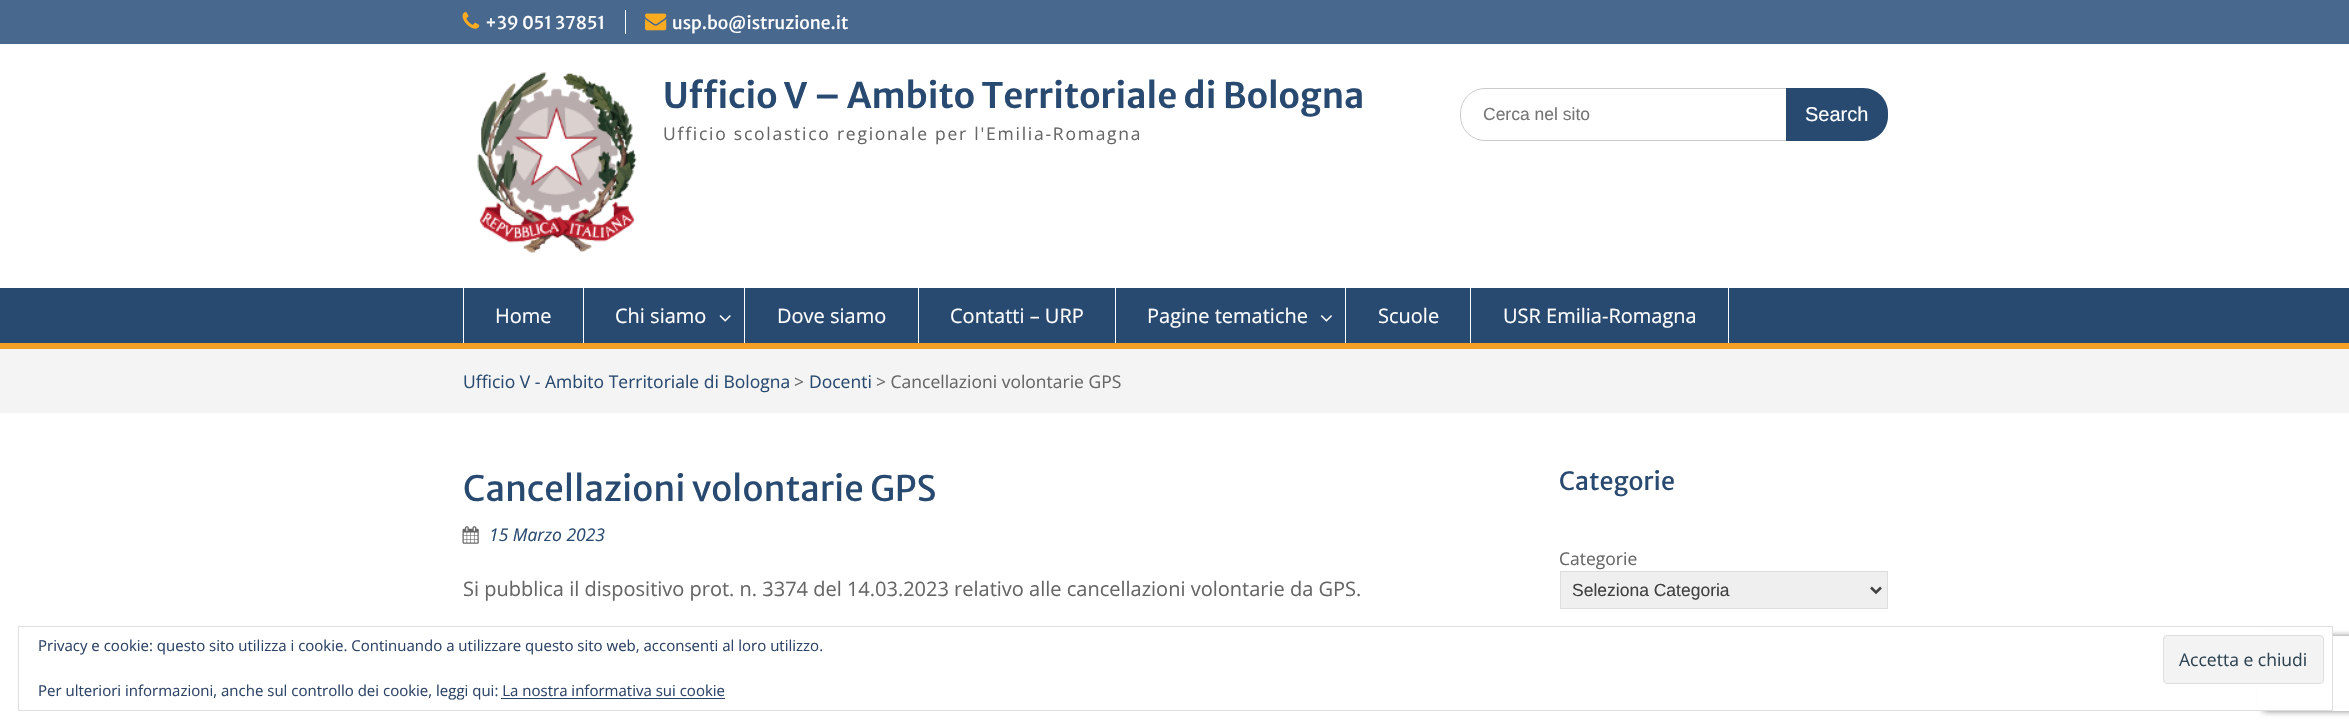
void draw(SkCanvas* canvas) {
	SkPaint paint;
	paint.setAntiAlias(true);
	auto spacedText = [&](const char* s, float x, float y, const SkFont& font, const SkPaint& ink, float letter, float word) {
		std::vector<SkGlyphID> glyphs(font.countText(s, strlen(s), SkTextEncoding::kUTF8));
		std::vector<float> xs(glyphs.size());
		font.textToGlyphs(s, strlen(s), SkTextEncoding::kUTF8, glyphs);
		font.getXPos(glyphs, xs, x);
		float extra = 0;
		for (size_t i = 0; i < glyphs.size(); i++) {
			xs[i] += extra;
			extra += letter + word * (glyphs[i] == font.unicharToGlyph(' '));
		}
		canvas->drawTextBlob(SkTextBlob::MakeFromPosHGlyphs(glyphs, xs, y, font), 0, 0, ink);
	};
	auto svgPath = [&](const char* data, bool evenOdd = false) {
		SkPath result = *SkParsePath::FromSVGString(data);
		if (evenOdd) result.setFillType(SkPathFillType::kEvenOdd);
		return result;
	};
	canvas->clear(0xffffffff);
	paint.setColor(0xff49688e);
	canvas->drawRect(SkRect::MakeXYWH(0, 0, 2349, 44), paint);
	canvas->drawImageRect(SkImages::DeferredFromEncodedData(SkData::MakeFromFileName("img1.png")), SkRect::MakeXYWH(462, 12, 18, 17), SkSamplingOptions());
	SkFont f1(fontMgr->matchFamilyStyle("Merriweather Sans", SkFontStyle::Normal()), 17.5);
	f1.setSubpixel(true);
	paint.setColor(0xffffffff);
	canvas->drawString("+39 051 37851", 485, 29, f1, paint);
	canvas->drawRect(SkRect::MakeXYWH(625, 10, 1, 24), paint);
	canvas->drawImageRect(SkImages::DeferredFromEncodedData(SkData::MakeFromFileName("img2.png")), SkRect::MakeXYWH(645, 13, 22, 18), SkSamplingOptions());
	canvas->drawString("usp.bo@istruzione.it", 672, 29, f1, paint);
	canvas->drawImageRect(SkImages::DeferredFromEncodedData(SkData::MakeFromFileName("img3.png")), SkRect::MakeXYWH(477, 72, 160, 181), SkSamplingOptions());
	SkFont f2(fontMgr->matchFamilyStyle("Merriweather Sans", SkFontStyle(600, SkFontStyle::kNormal_Width, SkFontStyle::kUpright_Slant)), 35);
	f2.setSubpixel(true);
	paint.setColor(0xff294a70);
	canvas->drawString("Ufficio V – Ambito Territoriale di Bologna", 663, 108, f2, paint);
	SkFont f3(fontMgr->matchFamilyStyle("Open Sans", SkFontStyle::Normal()), 17.5);
	f3.setSubpixel(true);
	paint.setColor(0xff666666);
	spacedText("Ufficio scolastico regionale per l'Emilia-Romagna", 663, 140, f3, paint, 1.75, 0);
	paint.setStroke(true);
	paint.setStrokeWidth(1);
	paint.setColor(0xffcccccc);
	canvas->drawRoundRect(SkRect::MakeXYWH(1460.5, 88.5, 427, 52), 24.5, 24.5, paint);
	SkFont f4(fontMgr->matchFamilyStyle("Liberation Sans", SkFontStyle::Normal()), 17.5);
	f4.setSubpixel(true);
	paint.setStroke(false);
	paint.setColor(0xff757575);
	canvas->drawString("Cerca nel sito", 1483, 120, f4, paint);
	paint.setColor(0xff294a70);
	canvas->drawPath(svgPath("M1786 88H1863C1877 88 1888 99 1888 113V116C1888 130 1877 141 1863 141H1786Z"), paint);
	SkFont f5(fontMgr->matchFamilyStyle("Liberation Sans", SkFontStyle::Normal()), 20);
	f5.setSubpixel(true);
	paint.setColor(0xffffffff);
	canvas->drawString("Search", 1805, 121, f5, paint);
	paint.setColor(0xff294a70);
	canvas->drawRect(SkRect::MakeXYWH(0, 288, 2349, 55), paint);
	paint.setColor(0xfff4a024);
	canvas->drawRect(SkRect::MakeXYWH(0, 343, 2349, 6), paint);
	paint.setColor(0xffffffff);
	canvas->drawRect(SkRect::MakeXYWH(583, 288, 1, 55), paint);
	canvas->drawRect(SkRect::MakeXYWH(463, 288, 1, 55), paint);
	SkFont f6(fontMgr->matchFamilyStyle("Open Sans", SkFontStyle::Normal()), 20);
	f6.setSubpixel(true);
	canvas->drawString("Home", 495, 323, f6, paint);
	canvas->drawRect(SkRect::MakeXYWH(744, 288, 1, 55), paint);
	canvas->drawString("Chi siamo", 615, 323, f6, paint);
	canvas->drawImageRect(SkImages::DeferredFromEncodedData(SkData::MakeFromFileName("img4.png")), SkRect::MakeXYWH(719, 315, 12, 7), SkSamplingOptions());
	canvas->drawRect(SkRect::MakeXYWH(918, 288, 1, 55), paint);
	canvas->drawString("Dove siamo", 777, 323, f6, paint);
	canvas->drawRect(SkRect::MakeXYWH(1115, 288, 1, 55), paint);
	canvas->drawString("Contatti – URP", 950, 323, f6, paint);
	canvas->drawRect(SkRect::MakeXYWH(1345, 288, 1, 55), paint);
	canvas->drawString("Pagine tematiche", 1147, 323, f6, paint);
	canvas->drawImageRect(SkImages::DeferredFromEncodedData(SkData::MakeFromFileName("img5.png")), SkRect::MakeXYWH(1320, 315, 12, 7), SkSamplingOptions());
	canvas->drawRect(SkRect::MakeXYWH(1470, 288, 1, 55), paint);
	canvas->drawString("Scuole", 1378, 323, f6, paint);
	canvas->drawRect(SkRect::MakeXYWH(1728, 288, 1, 55), paint);
	canvas->drawString("USR Emilia-Romagna", 1503, 323, f6, paint);
	paint.setColor(0xfff4f4f4);
	canvas->drawRect(SkRect::MakeXYWH(0, 349, 2349, 64), paint);
	paint.setColor(0xff294a70);
	canvas->drawString("Ufficio V - Ambito Territoriale di Bologna", 463, 388, f3, paint);
	paint.setColor(0xff666666);
	canvas->drawString(">", 794, 388, f3, paint);
	paint.setColor(0xff294a70);
	canvas->drawString("Docenti", 809, 388, f3, paint);
	paint.setColor(0xff666666);
	canvas->drawString("> Cancellazioni volontarie GPS", 876, 388, f3, paint);
	SkFont f7(fontMgr->matchFamilyStyle("Merriweather Sans", SkFontStyle::Normal()), 35);
	f7.setSubpixel(true);
	paint.setColor(0xff294a70);
	canvas->drawString("Cancellazioni volontarie GPS", 463, 501, f7, paint);
	canvas->drawImageRect(SkImages::DeferredFromEncodedData(SkData::MakeFromFileName("img6.png")), SkRect::MakeXYWH(462, 526, 17, 18), SkSamplingOptions());
	SkFont f8(fontMgr->matchFamilyStyle("Open Sans", SkFontStyle::Italic()), 17.5);
	f8.setSubpixel(true);
	canvas->drawString("15 Marzo 2023", 489, 541, f8, paint);
	paint.setColor(0xff666666);
	canvas->drawString("Si pubblica il dispositivo prot. n. 3374 del 14.03.2023 relativo alle cancellazioni volontarie da GPS.", 463, 596, f6, paint);
	SkFont f9(fontMgr->matchFamilyStyle("Merriweather Sans", SkFontStyle::Normal()), 25);
	f9.setSubpixel(true);
	paint.setColor(0xff294a70);
	canvas->drawString("Categorie", 1559, 490, f9, paint);
	paint.setColor(0xff666666);
	canvas->drawString("Categorie", 1559, 565, f3, paint);
	paint.setColor(0xffefefef);
	canvas->drawRect(SkRect::MakeXYWH(1560.5, 571.5, 327, 37), paint);
	paint.setStroke(true);
	paint.setColor(0xffdddddd);
	canvas->drawRect(SkRect::MakeXYWH(1560.5, 571.5, 327, 37), paint);
	paint.setStrokeWidth(2.5);
	paint.setColor(0xff404040);
	canvas->drawPath(svgPath("M1871 587.5L1876 592.5L1881 587.5"), paint);
	paint.setStroke(false);
	canvas->drawString("Seleziona Categoria", 1572, 596, f4, paint);
	canvas->save();
	canvas->clipPath(svgPath("M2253 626H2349V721H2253ZM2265.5 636H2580.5C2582 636 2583 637 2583 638.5V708.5C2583 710 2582 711 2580.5 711H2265.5C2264 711 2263 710 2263 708.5V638.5C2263 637 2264 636 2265.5 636Z", true), true);
	paint.setColor(0xff808080);
	paint.setMaskFilter(SkMaskFilter::MakeBlur(kNormal_SkBlurStyle, 3));
	canvas->drawRoundRect(SkRect::MakeXYWH(2263, 636, 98, 75), 2.5, 2.5, paint);
	paint.setMaskFilter(nullptr);
	canvas->restore();
	paint.setColor(0xffffffff);
	canvas->drawRect(SkRect::MakeXYWH(2257, 630, 75, 80), paint);
	paint.setStroke(true);
	paint.setStrokeWidth(1);
	paint.setColor(0xffdedede);
	canvas->drawRect(SkRect::MakeXYWH(18.5, 626.5, 2314, 84), paint);
	SkFont f10(fontMgr->matchFamilyStyle("Open Sans", SkFontStyle::Normal()), 15);
	f10.setSubpixel(true);
	paint.setStroke(false);
	paint.setColor(0xff2e4467);
	canvas->drawString("Privacy e cookie: questo sito utilizza i cookie. Continuando a utilizzare questo sito web, acconsenti al loro utilizzo.", 38, 651, f10, paint);
	paint.setColor(0xfff3f3f3);
	canvas->drawRoundRect(SkRect::MakeXYWH(2163.5, 635.5, 160, 48), 3.5, 3.5, paint);
	paint.setStroke(true);
	paint.setColor(0xffdedede);
	canvas->drawRoundRect(SkRect::MakeXYWH(2163.5, 635.5, 160, 48), 3.5, 3.5, paint);
	paint.setStroke(false);
	paint.setColor(0xff2e4453);
	canvas->drawString("Accetta e chiudi", 2179, 666, f3, paint);
	paint.setColor(0xff2e4467);
	canvas->drawString("Per ulteriori informazioni, anche sul controllo dei cookie, leggi qui: La nostra informativa sui cookie", 38, 696, f10, paint);
	canvas->drawRect(SkRect::MakeXYWH(501, 698, 224, 1), paint);
}
